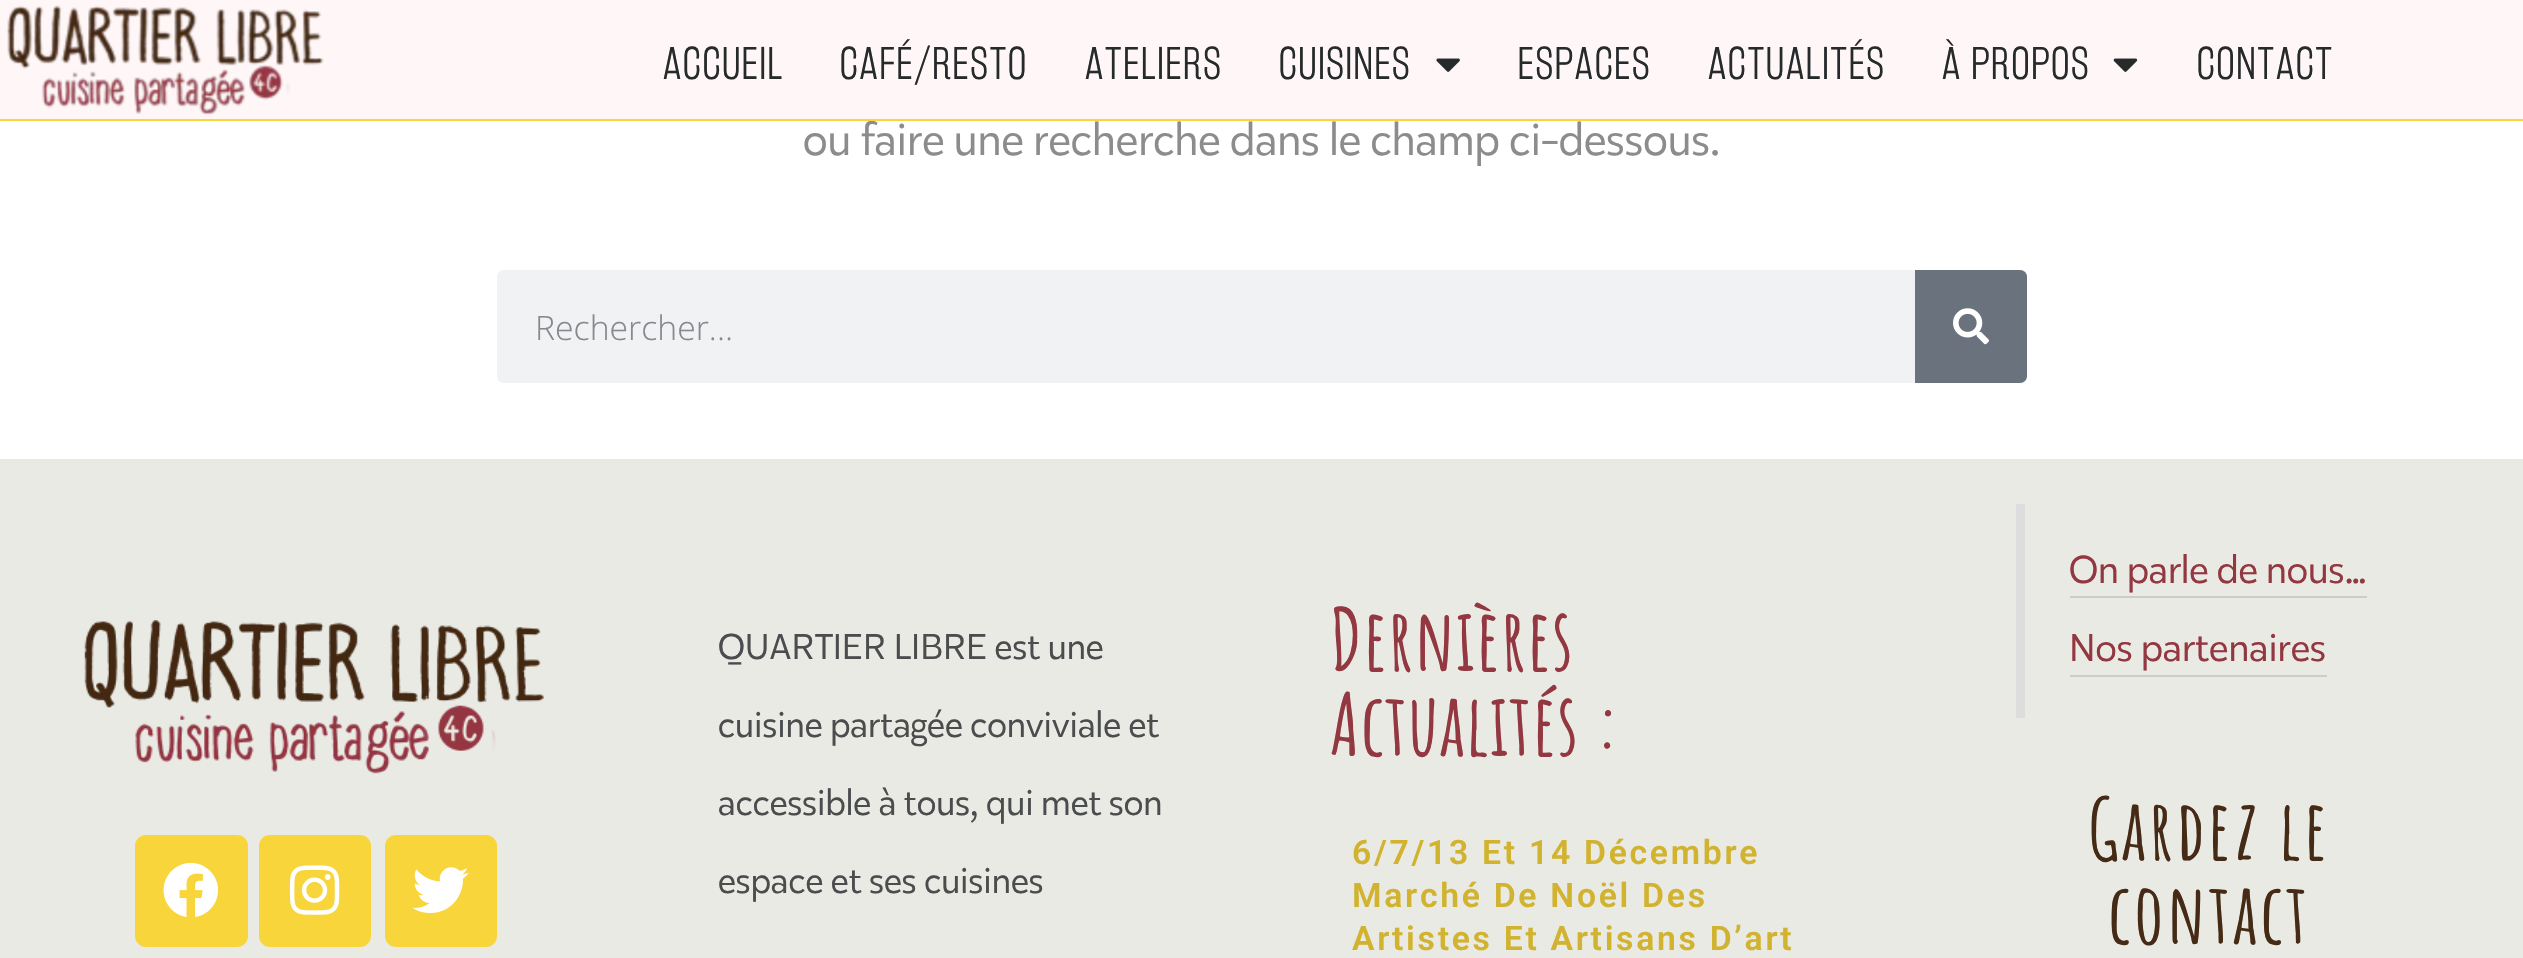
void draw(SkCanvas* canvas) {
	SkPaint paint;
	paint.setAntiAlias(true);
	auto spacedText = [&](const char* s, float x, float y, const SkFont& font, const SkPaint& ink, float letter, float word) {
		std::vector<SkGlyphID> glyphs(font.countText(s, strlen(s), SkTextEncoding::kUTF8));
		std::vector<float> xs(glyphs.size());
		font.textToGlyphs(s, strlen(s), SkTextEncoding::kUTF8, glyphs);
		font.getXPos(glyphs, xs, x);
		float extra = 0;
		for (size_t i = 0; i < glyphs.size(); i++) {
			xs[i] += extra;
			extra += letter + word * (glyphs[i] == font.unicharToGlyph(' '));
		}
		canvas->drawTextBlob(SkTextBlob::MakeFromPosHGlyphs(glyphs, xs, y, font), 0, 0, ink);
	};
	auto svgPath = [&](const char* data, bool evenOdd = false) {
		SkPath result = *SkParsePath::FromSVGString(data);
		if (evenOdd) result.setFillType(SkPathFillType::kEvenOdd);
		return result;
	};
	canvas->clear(0xffffffff);
	paint.setColor(0xfffff7f7);
	canvas->drawRect(SkRect::MakeXYWH(0, 0, 2523, 119), paint);
	SkFont f1(fontMgr->matchFamilyStyle("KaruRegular", SkFontStyle::Normal()), 45);
	f1.setSubpixel(true);
	paint.setColor(0xff8c8c8c);
	canvas->drawString("ou faire une recherche dans le champ ci-dessous.", 803, 155, f1, paint);
	paint.setColor(0xfff8d63b);
	canvas->drawRect(SkRect::MakeXYWH(0, 119, 2523, 2), paint);
	canvas->drawImageRect(SkImages::DeferredFromEncodedData(SkData::MakeFromFileName("img1.png")), SkRect::MakeXYWH(7, 5, 317, 110), SkSamplingOptions());
	SkFont f2(fontMgr->matchFamilyStyle("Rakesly", SkFontStyle::Normal()), 40.5);
	f2.setSubpixel(true);
	paint.setColor(0xff262a2b);
	spacedText("ACCUEIL", 663, 79, f2, paint, 2, 0);
	spacedText("CAFÉ/RESTO", 840, 79, f2, paint, 2, 0);
	spacedText("ATELIERS", 1085, 79, f2, paint, 2, 0);
	spacedText("CUISINES", 1279, 79, f2, paint, 2, 0);
	canvas->drawImageRect(SkImages::DeferredFromEncodedData(SkData::MakeFromFileName("img2.png")), SkRect::MakeXYWH(1436, 58, 24, 14), SkSamplingOptions());
	spacedText("ESPACES", 1518, 79, f2, paint, 2, 0);
	spacedText("ACTUALITÉS", 1708, 79, f2, paint, 2, 0);
	spacedText("À PROPOS", 1942, 79, f2, paint, 2, 0);
	canvas->drawImageRect(SkImages::DeferredFromEncodedData(SkData::MakeFromFileName("img3.png")), SkRect::MakeXYWH(2113, 58, 25, 14), SkSamplingOptions());
	spacedText("CONTACT", 2197, 79, f2, paint, 2, 0);
	paint.setColor(0xfff1f2f3);
	canvas->drawRoundRect(SkRect::MakeXYWH(497, 270, 1530, 113), 7, 7, paint);
	SkFont f3(fontMgr->matchFamilyStyle("Open Sans", SkFontStyle(300, SkFontStyle::kNormal_Width, SkFontStyle::kUpright_Slant)), 33.75);
	f3.setSubpixel(true);
	paint.setColor(0xff868a8e);
	canvas->drawString("Rechercher...", 535, 340, f3, paint);
	paint.setColor(0xff69727d);
	canvas->drawPath(svgPath("M1915 270H2020C2024 270 2027 273 2027 277V376C2027 380 2024 383 2020 383H1915Z"), paint);
	canvas->drawImageRect(SkImages::DeferredFromEncodedData(SkData::MakeFromFileName("img4.png")), SkRect::MakeXYWH(1953, 308, 36, 37), SkSamplingOptions());
	paint.setColor(0xffeaeae4);
	canvas->drawRect(SkRect::MakeXYWH(0, 459, 2523, 499), paint);
	canvas->drawImageRect(SkImages::DeferredFromEncodedData(SkData::MakeFromFileName("img5.png")), SkRect::MakeXYWH(84, 620, 460, 154), SkSamplingOptions());
	paint.setColor(0xfff8d63b);
	canvas->drawRoundRect(SkRect::MakeXYWH(135, 835, 113, 112), 11, 11, paint);
	canvas->drawImageRect(SkImages::DeferredFromEncodedData(SkData::MakeFromFileName("img6.png")), SkRect::MakeXYWH(163, 862, 55, 55), SkSamplingOptions());
	canvas->drawRoundRect(SkRect::MakeXYWH(259, 835, 112, 112), 11, 11, paint);
	canvas->drawImageRect(SkImages::DeferredFromEncodedData(SkData::MakeFromFileName("img7.png")), SkRect::MakeXYWH(289, 865, 51, 50), SkSamplingOptions());
	canvas->drawRoundRect(SkRect::MakeXYWH(385, 835, 112, 112), 11, 11, paint);
	canvas->drawImageRect(SkImages::DeferredFromEncodedData(SkData::MakeFromFileName("img8.png")), SkRect::MakeXYWH(412, 867, 57, 46), SkSamplingOptions());
	SkFont f4(fontMgr->matchFamilyStyle("KaruRegular", SkFontStyle::Normal()), 36);
	f4.setSubpixel(true);
	paint.setColor(0xff4a4c4e);
	canvas->drawString("QUARTIER LIBRE est une", 718, 659, f4, paint);
	canvas->drawString("cuisine partagée conviviale et", 718, 737, f4, paint);
	canvas->drawString("accessible à tous, qui met son", 718, 815, f4, paint);
	canvas->drawString("espace et ses cuisines", 718, 893, f4, paint);
	SkFont f5(fontMgr->matchFamilyStyle("Amatic SC", SkFontStyle::Bold()), 85.5);
	f5.setSubpixel(true);
	paint.setColor(0xff933741);
	spacedText("Dernières", 1330, 671, f5, paint, 0.75, 0);
	spacedText("Actualités :", 1330, 756, f5, paint, 0.75, 0);
	SkFont f6(fontMgr->matchFamilyStyle("Roboto", SkFontStyle(600, SkFontStyle::kNormal_Width, SkFontStyle::kUpright_Slant)), 33.75);
	f6.setSubpixel(true);
	paint.setColor(0xffd1b32f);
	spacedText("6/7/13 Et 14 Décembre", 1352, 864, f6, paint, 2.7, 0);
	spacedText("Marché De Noël Des", 1352, 907, f6, paint, 2.7, 0);
	spacedText("Artistes Et Artisans D’art", 1352, 950, f6, paint, 2.7, 0);
	paint.setColor(0xffdddddd);
	canvas->drawRect(SkRect::MakeXYWH(2016, 504, 9, 214), paint);
	SkFont f7(fontMgr->matchFamilyStyle("KaruRegular", SkFontStyle::Normal()), 39);
	f7.setSubpixel(true);
	paint.setColor(0xff933741);
	canvas->drawString("On parle de nous…", 2069, 583, f7, paint);
	paint.setColor(0xffcccccc);
	canvas->drawRect(SkRect::MakeXYWH(2070, 596, 297, 2), paint);
	paint.setColor(0xff933741);
	canvas->drawString("Nos partenaires", 2069, 661, f7, paint);
	paint.setColor(0xffcccccc);
	canvas->drawRect(SkRect::MakeXYWH(2070, 675, 257, 2), paint);
	SkFont f8(fontMgr->matchFamilyStyle("Amatic SC", SkFontStyle::Bold()), 83);
	f8.setSubpixel(true);
	paint.setColor(0xff452b16);
	spacedText("Gardez le", 2088, 860, f8, paint, 2.7, 0);
	spacedText("contact", 2108, 944, f8, paint, 2.7, 0);
}
